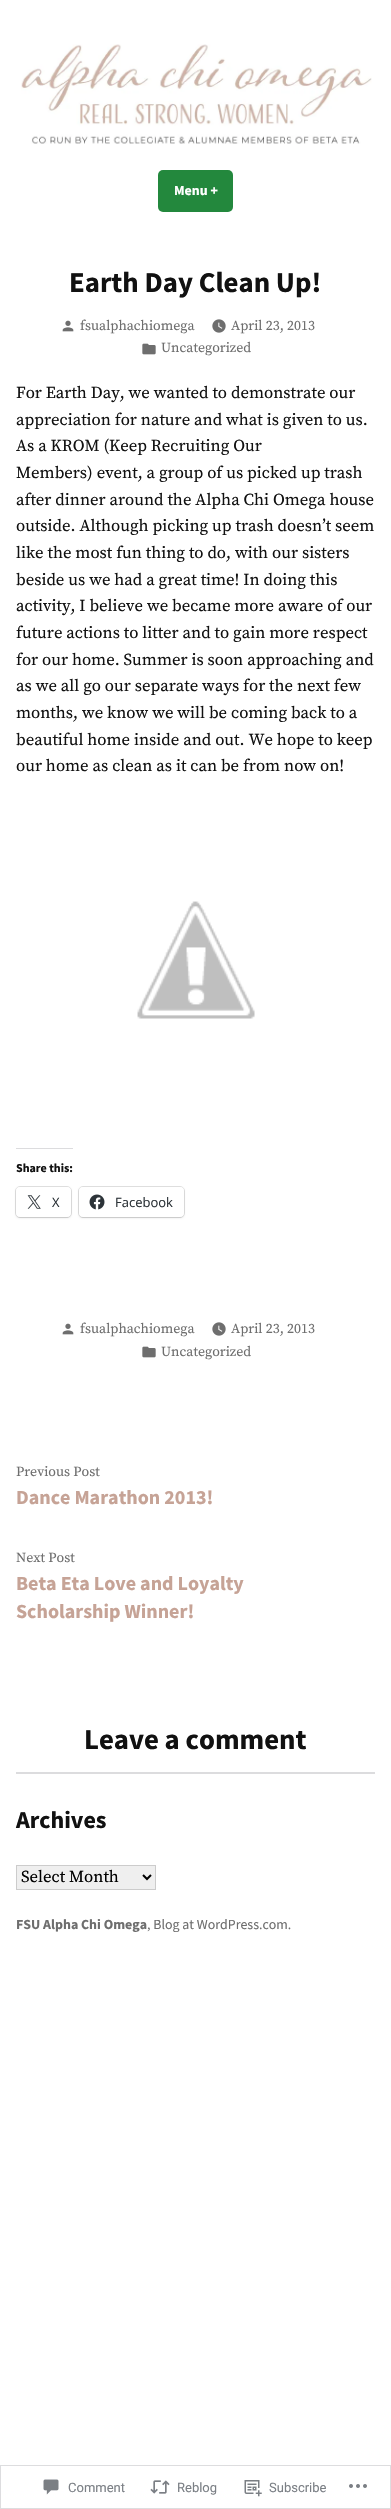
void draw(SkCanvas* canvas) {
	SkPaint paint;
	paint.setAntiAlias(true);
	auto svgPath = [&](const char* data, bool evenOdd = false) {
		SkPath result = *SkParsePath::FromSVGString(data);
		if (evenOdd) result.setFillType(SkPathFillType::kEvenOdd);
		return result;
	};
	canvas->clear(0xffffffff);
	canvas->drawImageRect(SkImages::DeferredFromEncodedData(SkData::MakeFromFileName("img1.png")), SkRect::MakeXYWH(21, 44, 351, 100), SkSamplingOptions());
	paint.setColor(0xff23883d);
	canvas->drawRoundRect(SkRect::MakeXYWH(158, 170, 75, 42), 5, 5, paint);
	SkFont f1(fontMgr->matchFamilyStyle("Source Sans Pro", SkFontStyle::Bold()), 13.9);
	f1.setSubpixel(true);
	paint.setColor(0xffffffff);
	canvas->drawString("Menu +", 174, 195, f1, paint);
	SkFont f2(fontMgr->matchFamilyStyle("Source Sans Pro", SkFontStyle::Bold()), 28.75);
	f2.setSubpixel(true);
	paint.setColor(0xff111111);
	canvas->drawString("Earth Day Clean Up!", 69, 292, f2, paint);
	canvas->drawImageRect(SkImages::DeferredFromEncodedData(SkData::MakeFromFileName("img2.png")), SkRect::MakeXYWH(62, 320, 12, 12), SkSamplingOptions());
	SkFont f3(fontMgr->matchFamilyStyle("Source Serif Pro", SkFontStyle::Normal()), 13.9);
	f3.setSubpixel(true);
	paint.setColor(0xff6e6e6e);
	canvas->drawString("fsualphachiomega", 80, 330, f3, paint);
	canvas->drawImageRect(SkImages::DeferredFromEncodedData(SkData::MakeFromFileName("img3.png")), SkRect::MakeXYWH(212, 319, 14, 14), SkSamplingOptions());
	canvas->drawString("April 23, 2013", 231, 330, f3, paint);
	canvas->drawImageRect(SkImages::DeferredFromEncodedData(SkData::MakeFromFileName("img4.png")), SkRect::MakeXYWH(142, 343, 14, 12), SkSamplingOptions());
	canvas->drawString("Uncategorized", 161, 352, f3, paint);
	SkFont f4(fontMgr->matchFamilyStyle("Source Serif Pro", SkFontStyle::Normal()), 16.7);
	f4.setSubpixel(true);
	paint.setColor(0xff111111);
	canvas->drawString("For Earth Day, we wanted to demonstrate our", 16, 398, f4, paint);
	canvas->drawString("appreciation for nature and what is given to us.", 16, 425, f4, paint);
	canvas->drawString("As a KROM (Keep Recruiting Our", 16, 451, f4, paint);
	canvas->drawString("Members) event, a group of us picked up trash", 16, 478, f4, paint);
	canvas->drawString("after dinner around the Alpha Chi Omega house", 16, 505, f4, paint);
	canvas->drawString("outside. Although picking up trash doesn’t seem", 16, 531, f4, paint);
	canvas->drawString("like the most fun thing to do, with our sisters", 16, 558, f4, paint);
	canvas->drawString("beside us we had a great time! In doing this", 16, 585, f4, paint);
	canvas->drawString("activity, I believe we became more aware of our", 16, 611, f4, paint);
	canvas->drawString("future actions to litter and to gain more respect", 16, 638, f4, paint);
	canvas->drawString("for our home. Summer is soon approaching and", 16, 665, f4, paint);
	canvas->drawString("as we all go our separate ways for the next few", 16, 691, f4, paint);
	canvas->drawString("months, we know we will be coming back to a", 16, 718, f4, paint);
	canvas->drawString("beautiful home inside and out. We hope to keep", 16, 745, f4, paint);
	canvas->drawString("our home as clean as it can be from now on!", 16, 771, f4, paint);
	canvas->drawImageRect(SkImages::DeferredFromEncodedData(SkData::MakeFromFileName("img5.png")), SkRect::MakeXYWH(137, 901, 118, 118), SkSamplingOptions());
	paint.setColor(0xffdcdcde);
	canvas->drawRect(SkRect::MakeXYWH(16, 1148, 57, 1), paint);
	SkFont f5(fontMgr->matchFamilyStyle("Source Sans Pro", SkFontStyle::Bold()), 12);
	f5.setSubpixel(true);
	paint.setColor(0xff111111);
	canvas->drawString("Share this:", 16, 1172, f5, paint);
	paint.setStroke(true);
	paint.setStrokeWidth(1);
	paint.setColor(0xffe0e0e0);
	canvas->drawRoundRect(SkRect::MakeXYWH(15.5, 1186.5, 56, 31), 4.5, 4.5, paint);
	paint.setStroke(false);
	paint.setColor(0x1f000000);
	paint.setMaskFilter(SkMaskFilter::MakeBlur(kNormal_SkBlurStyle, 1));
	canvas->drawRoundRect(SkRect::MakeXYWH(16, 1188, 55, 30), 4, 4, paint);
	paint.setMaskFilter(nullptr);
	paint.setColor(0xffffffff);
	canvas->drawRoundRect(SkRect::MakeXYWH(16, 1187, 55, 30), 4, 4, paint);
	canvas->drawImageRect(SkImages::DeferredFromEncodedData(SkData::MakeFromFileName("img6.png")), SkRect::MakeXYWH(27, 1195, 14, 14), SkSamplingOptions());
	SkFont f6(fontMgr->matchFamilyStyle("Open Sans", SkFontStyle::Normal()), 13);
	f6.setSubpixel(true);
	paint.setColor(0xff2c3338);
	canvas->drawString("X", 52, 1207, f6, paint);
	paint.setStroke(true);
	paint.setColor(0xffe0e0e0);
	canvas->drawRoundRect(SkRect::MakeXYWH(78.5, 1186.5, 106, 31), 4.5, 4.5, paint);
	paint.setStroke(false);
	paint.setColor(0x1f000000);
	paint.setMaskFilter(SkMaskFilter::MakeBlur(kNormal_SkBlurStyle, 1));
	canvas->drawRoundRect(SkRect::MakeXYWH(79, 1188, 105, 30), 4, 4, paint);
	paint.setMaskFilter(nullptr);
	paint.setColor(0xffffffff);
	canvas->drawRoundRect(SkRect::MakeXYWH(79, 1187, 105, 30), 4, 4, paint);
	canvas->drawImageRect(SkImages::DeferredFromEncodedData(SkData::MakeFromFileName("img7.png")), SkRect::MakeXYWH(89, 1194, 16, 16), SkSamplingOptions());
	paint.setColor(0xff2c3338);
	canvas->drawString("Facebook", 115, 1207, f6, paint);
	canvas->drawImageRect(SkImages::DeferredFromEncodedData(SkData::MakeFromFileName("img2.png")), SkRect::MakeXYWH(62, 1323, 12, 12), SkSamplingOptions());
	paint.setColor(0xff6e6e6e);
	canvas->drawString("fsualphachiomega", 80, 1333, f3, paint);
	canvas->drawImageRect(SkImages::DeferredFromEncodedData(SkData::MakeFromFileName("img3.png")), SkRect::MakeXYWH(212, 1322, 14, 14), SkSamplingOptions());
	canvas->drawString("April 23, 2013", 231, 1333, f3, paint);
	canvas->drawImageRect(SkImages::DeferredFromEncodedData(SkData::MakeFromFileName("img4.png")), SkRect::MakeXYWH(142, 1346, 14, 12), SkSamplingOptions());
	canvas->drawString("Uncategorized", 161, 1356, f3, paint);
	canvas->drawString("Previous Post", 16, 1476, f3, paint);
	SkFont f7(fontMgr->matchFamilyStyle("Source Sans Pro", SkFontStyle::Bold()), 20);
	f7.setSubpixel(true);
	paint.setColor(0xffc6a396);
	canvas->drawString("Dance Marathon 2013!", 16, 1504, f7, paint);
	paint.setColor(0xff6e6e6e);
	canvas->drawString("Next Post", 16, 1562, f3, paint);
	paint.setColor(0xffc6a396);
	canvas->drawString("Beta Eta Love and Loyalty", 16, 1590, f7, paint);
	canvas->drawString("Scholarship Winner!", 16, 1618, f7, paint);
	paint.setColor(0xff111111);
	canvas->drawString("Leave a comment", 84, 1749, f2, paint);
	paint.setColor(0xffdcdcde);
	canvas->drawRect(SkRect::MakeXYWH(16, 1772, 359, 2), paint);
	SkFont f8(fontMgr->matchFamilyStyle("Source Sans Pro", SkFontStyle::Bold()), 24);
	f8.setSubpixel(true);
	paint.setColor(0xff111111);
	canvas->drawString("Archives", 16, 1828, f8, paint);
	paint.setColor(0xffefefef);
	canvas->drawRect(SkRect::MakeXYWH(16.5, 1865.5, 139, 24), paint);
	paint.setStroke(true);
	paint.setColor(0xffcccccc);
	canvas->drawRect(SkRect::MakeXYWH(16.5, 1865.5, 139, 24), paint);
	paint.setStrokeWidth(2);
	paint.setColor(0xff000000);
	canvas->drawPath(svgPath("M143 1875L147 1879L151 1875"), paint);
	paint.setStroke(false);
	canvas->drawString("Select Month", 21, 1882, f4, paint);
	paint.setColor(0xff6e6e6e);
	canvas->drawString("FSU Alpha Chi Omega", 16, 1929, f1, paint);
	SkFont f9(fontMgr->matchFamilyStyle("Source Sans Pro", SkFontStyle::Normal()), 13.9);
	f9.setSubpixel(true);
	canvas->drawString(", Blog at WordPress.com.", 147, 1929, f9, paint);
	paint.setStroke(true);
	paint.setStrokeWidth(1);
	paint.setColor(0xffdddddf);
	canvas->drawRect(SkRect::MakeXYWH(0.5, 2465.5, 390, 43), paint);
	canvas->drawImageRect(SkImages::DeferredFromEncodedData(SkData::MakeFromFileName("img8.png")), SkRect::MakeXYWH(43, 2479, 16, 16), SkSamplingOptions());
	SkFont f10(fontMgr->matchFamilyStyle("Roboto", SkFontStyle::Normal()), 13);
	f10.setSubpixel(true);
	paint.setStroke(false);
	paint.setColor(0xff7b7f85);
	canvas->drawString("Comment", 68, 2492, f10, paint);
	canvas->drawImageRect(SkImages::DeferredFromEncodedData(SkData::MakeFromFileName("img9.png")), SkRect::MakeXYWH(150, 2480, 20, 14), SkSamplingOptions());
	canvas->drawString("Reblog", 177, 2492, f10, paint);
	canvas->drawImageRect(SkImages::DeferredFromEncodedData(SkData::MakeFromFileName("img10.png")), SkRect::MakeXYWH(244, 2480, 18, 17), SkSamplingOptions());
	canvas->drawString("Subscribe", 269, 2492, f10, paint);
	canvas->drawImageRect(SkImages::DeferredFromEncodedData(SkData::MakeFromFileName("img11.png")), SkRect::MakeXYWH(349, 2484, 18, 4), SkSamplingOptions());
}
